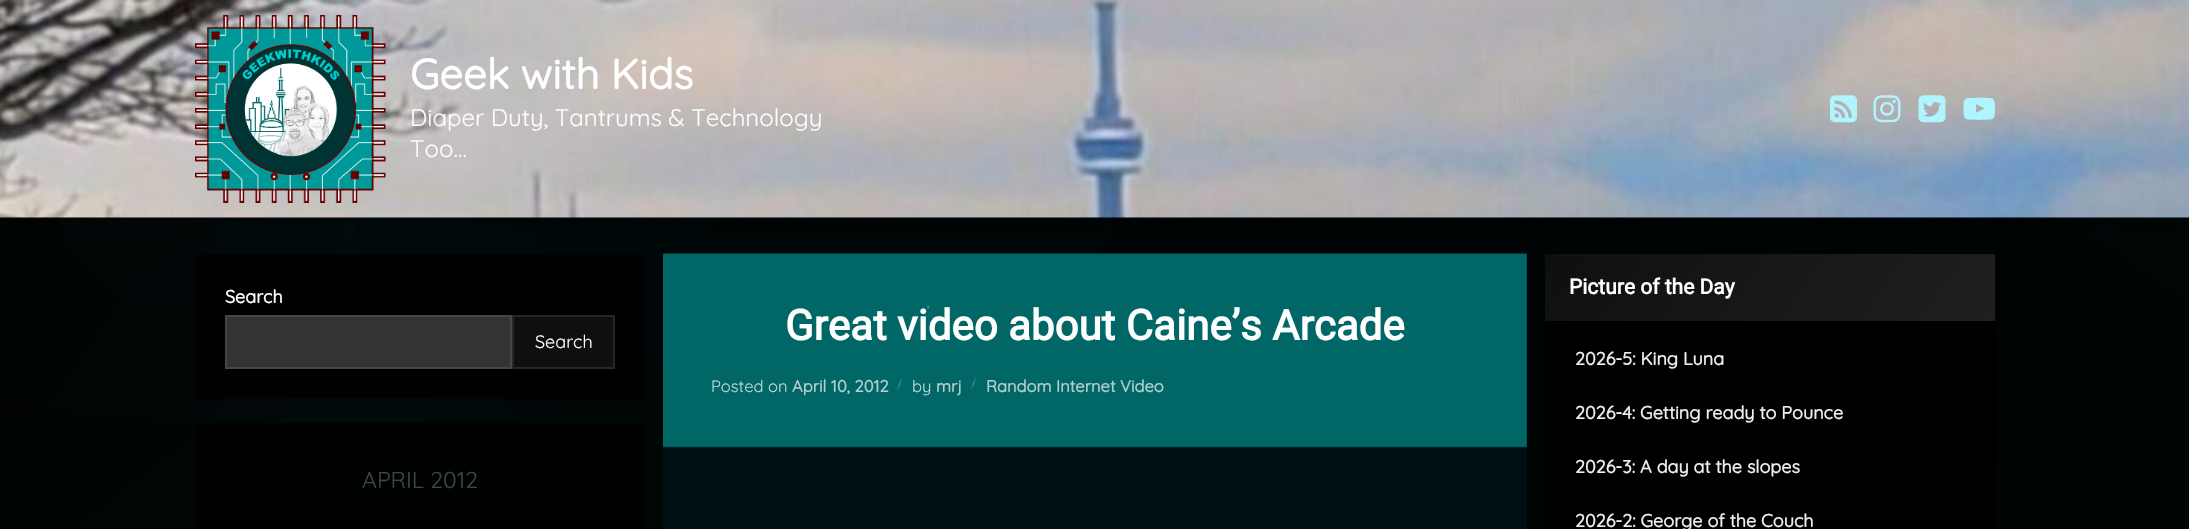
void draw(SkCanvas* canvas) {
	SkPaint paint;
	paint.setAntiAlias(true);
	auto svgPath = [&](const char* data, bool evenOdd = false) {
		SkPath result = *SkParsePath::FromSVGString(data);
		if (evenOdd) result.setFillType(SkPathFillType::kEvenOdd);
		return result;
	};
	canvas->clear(0xffffffff);
	canvas->drawImageRect(SkImages::DeferredFromEncodedData(SkData::MakeFromFileName("img8.png")), SkRect::MakeXYWH(0, 217, 2189, 312), SkSamplingOptions());
	paint.setColor(0x40000000);
	paint.setMaskFilter(SkMaskFilter::MakeBlur(kNormal_SkBlurStyle, 4));
	canvas->drawRect(SkRect::MakeXYWH(0, 0, 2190, 218), paint);
	paint.setMaskFilter(nullptr);
	paint.setMaskFilter(SkMaskFilter::MakeBlur(kNormal_SkBlurStyle, 7.5));
	canvas->drawRect(SkRect::MakeXYWH(0, 8, 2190, 217), paint);
	paint.setMaskFilter(nullptr);
	canvas->drawImageRect(SkImages::DeferredFromEncodedData(SkData::MakeFromFileName("img1.png")), SkRect::MakeXYWH(0, 0, 2189, 218), SkSamplingOptions());
	canvas->drawImageRect(SkImages::DeferredFromEncodedData(SkData::MakeFromFileName("img2.png")), SkRect::MakeXYWH(195, 15, 191, 188), SkSamplingOptions());
	SkFont f1(fontMgr->matchFamilyStyle("Quicksand", SkFontStyle::Bold()), 42);
	f1.setSubpixel(true);
	paint.setColor(0xfffefefe);
	canvas->drawString("Geek with Kids", 410, 89, f1, paint);
	SkFont f2(fontMgr->matchFamilyStyle("Quicksand", SkFontStyle(300, SkFontStyle::kNormal_Width, SkFontStyle::kUpright_Slant)), 24);
	f2.setSubpixel(true);
	canvas->drawString("Diaper Duty, Tantrums & Technology", 410, 126, f2, paint);
	canvas->drawString("Too…", 410, 157, f2, paint);
	canvas->drawImageRect(SkImages::DeferredFromEncodedData(SkData::MakeFromFileName("img3.png")), SkRect::MakeXYWH(1830, 95, 27, 28), SkSamplingOptions());
	canvas->drawImageRect(SkImages::DeferredFromEncodedData(SkData::MakeFromFileName("img4.png")), SkRect::MakeXYWH(1873, 95, 28, 28), SkSamplingOptions());
	canvas->drawImageRect(SkImages::DeferredFromEncodedData(SkData::MakeFromFileName("img5.png")), SkRect::MakeXYWH(1918, 95, 28, 28), SkSamplingOptions());
	canvas->drawImageRect(SkImages::DeferredFromEncodedData(SkData::MakeFromFileName("img6.png")), SkRect::MakeXYWH(1963, 97, 32, 23), SkSamplingOptions());
	paint.setColor(0xf2000000);
	canvas->drawRect(SkRect::MakeXYWH(195, 254, 450, 145), paint);
	SkFont f3(fontMgr->matchFamilyStyle("Quicksand", SkFontStyle::Bold()), 18);
	f3.setSubpixel(true);
	paint.setColor(0xfffefefe);
	canvas->drawString("Search", 225, 303, f3, paint);
	paint.setColor(0xff333333);
	canvas->drawRect(SkRect::MakeXYWH(226, 316, 285, 52), paint);
	paint.setStroke(true);
	paint.setStrokeWidth(2);
	paint.setColor(0xff474747);
	canvas->drawRect(SkRect::MakeXYWH(226, 316, 285, 52), paint);
	paint.setStroke(false);
	paint.setColor(0xff0f0f0f);
	canvas->drawRect(SkRect::MakeXYWH(513, 316, 101, 52), paint);
	paint.setStroke(true);
	paint.setColor(0xff272727);
	canvas->drawRect(SkRect::MakeXYWH(513, 316, 101, 52), paint);
	SkFont f4(fontMgr->matchFamilyStyle("Quicksand", SkFontStyle(300, SkFontStyle::kNormal_Width, SkFontStyle::kUpright_Slant)), 18);
	f4.setSubpixel(true);
	paint.setStroke(false);
	paint.setColor(0xfffefefe);
	canvas->drawString("Search", 535, 348, f4, paint);
	paint.setColor(0xf2000000);
	canvas->drawRect(SkRect::MakeXYWH(195, 423, 450, 106), paint);
	SkFont f5(fontMgr->matchFamilyStyle("Quicksand", SkFontStyle(300, SkFontStyle::kNormal_Width, SkFontStyle::kUpright_Slant)), 23);
	f5.setSubpixel(true);
	paint.setColor(0xff40464d);
	canvas->drawString("APRIL 2012", 362, 488, f5, paint);
	paint.setColor(0xff001012);
	canvas->drawRect(SkRect::MakeXYWH(663, 254, 864, 275), paint);
	canvas->drawImageRect(SkImages::DeferredFromEncodedData(SkData::MakeFromFileName("img7.png")), SkRect::MakeXYWH(663, 253, 864, 195), SkSamplingOptions());
	SkFont f6(fontMgr->matchFamilyStyle("Roboto", SkFontStyle::Bold()), 42);
	f6.setSubpixel(true);
	paint.setColor(0xfffefefe);
	canvas->drawString("Great video about Caine’s Arcade", 785, 340, f6, paint);
	SkFont f7(fontMgr->matchFamilyStyle("Quicksand", SkFontStyle(300, SkFontStyle::kNormal_Width, SkFontStyle::kUpright_Slant)), 16.5);
	f7.setSubpixel(true);
	paint.setColor(0xffbfd9d9);
	canvas->drawString("Posted on", 711, 392, f7, paint);
	SkFont f8(fontMgr->matchFamilyStyle("Quicksand", SkFontStyle::Bold()), 16.5);
	f8.setSubpixel(true);
	paint.setColor(0xffb3cdcd);
	canvas->drawString("April 10, 2012", 792, 392, f8, paint);
	{
		const SkColor colors[] = {0xff006666, 0xff458f8f, 0xff006666};
		const float stops[] = {0, 0.5, 1};
		const SkPoint ends[] = {{902, 376}, {897, 392}};
		paint.setShader(SkGradientShader::MakeLinear(ends, colors, stops, 3, SkTileMode::kClamp));
		paint.setAlpha(255);
	}
	canvas->drawPath(svgPath("M902 376L903 376.5L897.5 392L896 391.5Z"), paint);
	paint.setShader(nullptr);
	paint.setColor(0xffbfd9d9);
	canvas->drawString("by", 912, 392, f7, paint);
	paint.setColor(0xffb3cdcd);
	canvas->drawString("mrj", 936, 392, f8, paint);
	{
		const SkColor colors[] = {0xff006666, 0xff458f8f, 0xff006666};
		const float stops[] = {0, 0.5, 1};
		const SkPoint ends[] = {{976, 376}, {971, 392}};
		paint.setShader(SkGradientShader::MakeLinear(ends, colors, stops, 3, SkTileMode::kClamp));
		paint.setAlpha(255);
	}
	canvas->drawPath(svgPath("M975.5 376L977 376.5L971 392L970 391.5Z"), paint);
	paint.setShader(nullptr);
	paint.setColor(0xffb3cdcd);
	canvas->drawString("Random Internet Video", 986, 392, f8, paint);
	paint.setColor(0xff000000);
	canvas->drawRect(SkRect::MakeXYWH(1545, 321, 450, 208), paint);
	{
		const SkColor colors[] = {0xff0f0f0f, 0xff202020};
		const float stops[] = {0, 1};
		const SkPoint ends[] = {{1603, 170}, {1937, 404}};
		paint.setShader(SkGradientShader::MakeLinear(ends, colors, stops, 2, SkTileMode::kClamp));
		paint.setAlpha(255);
	}
	canvas->drawRect(SkRect::MakeXYWH(1545, 254, 450, 67), paint);
	SkFont f9(fontMgr->matchFamilyStyle("Roboto", SkFontStyle::Bold()), 21);
	f9.setSubpixel(true);
	paint.setShader(nullptr);
	paint.setColor(0xfffefefe);
	canvas->drawString("Picture of the Day", 1569, 294, f9, paint);
	paint.setColor(0xffeeeeee);
	canvas->drawString("2026-5: King Luna", 1575, 365, f3, paint);
	canvas->drawString("2026-4: Getting ready to Pounce", 1575, 419, f3, paint);
	canvas->drawString("2026-3: A day at the slopes", 1575, 473, f3, paint);
	canvas->drawString("2026-2: George of the Couch", 1575, 527, f3, paint);
}
